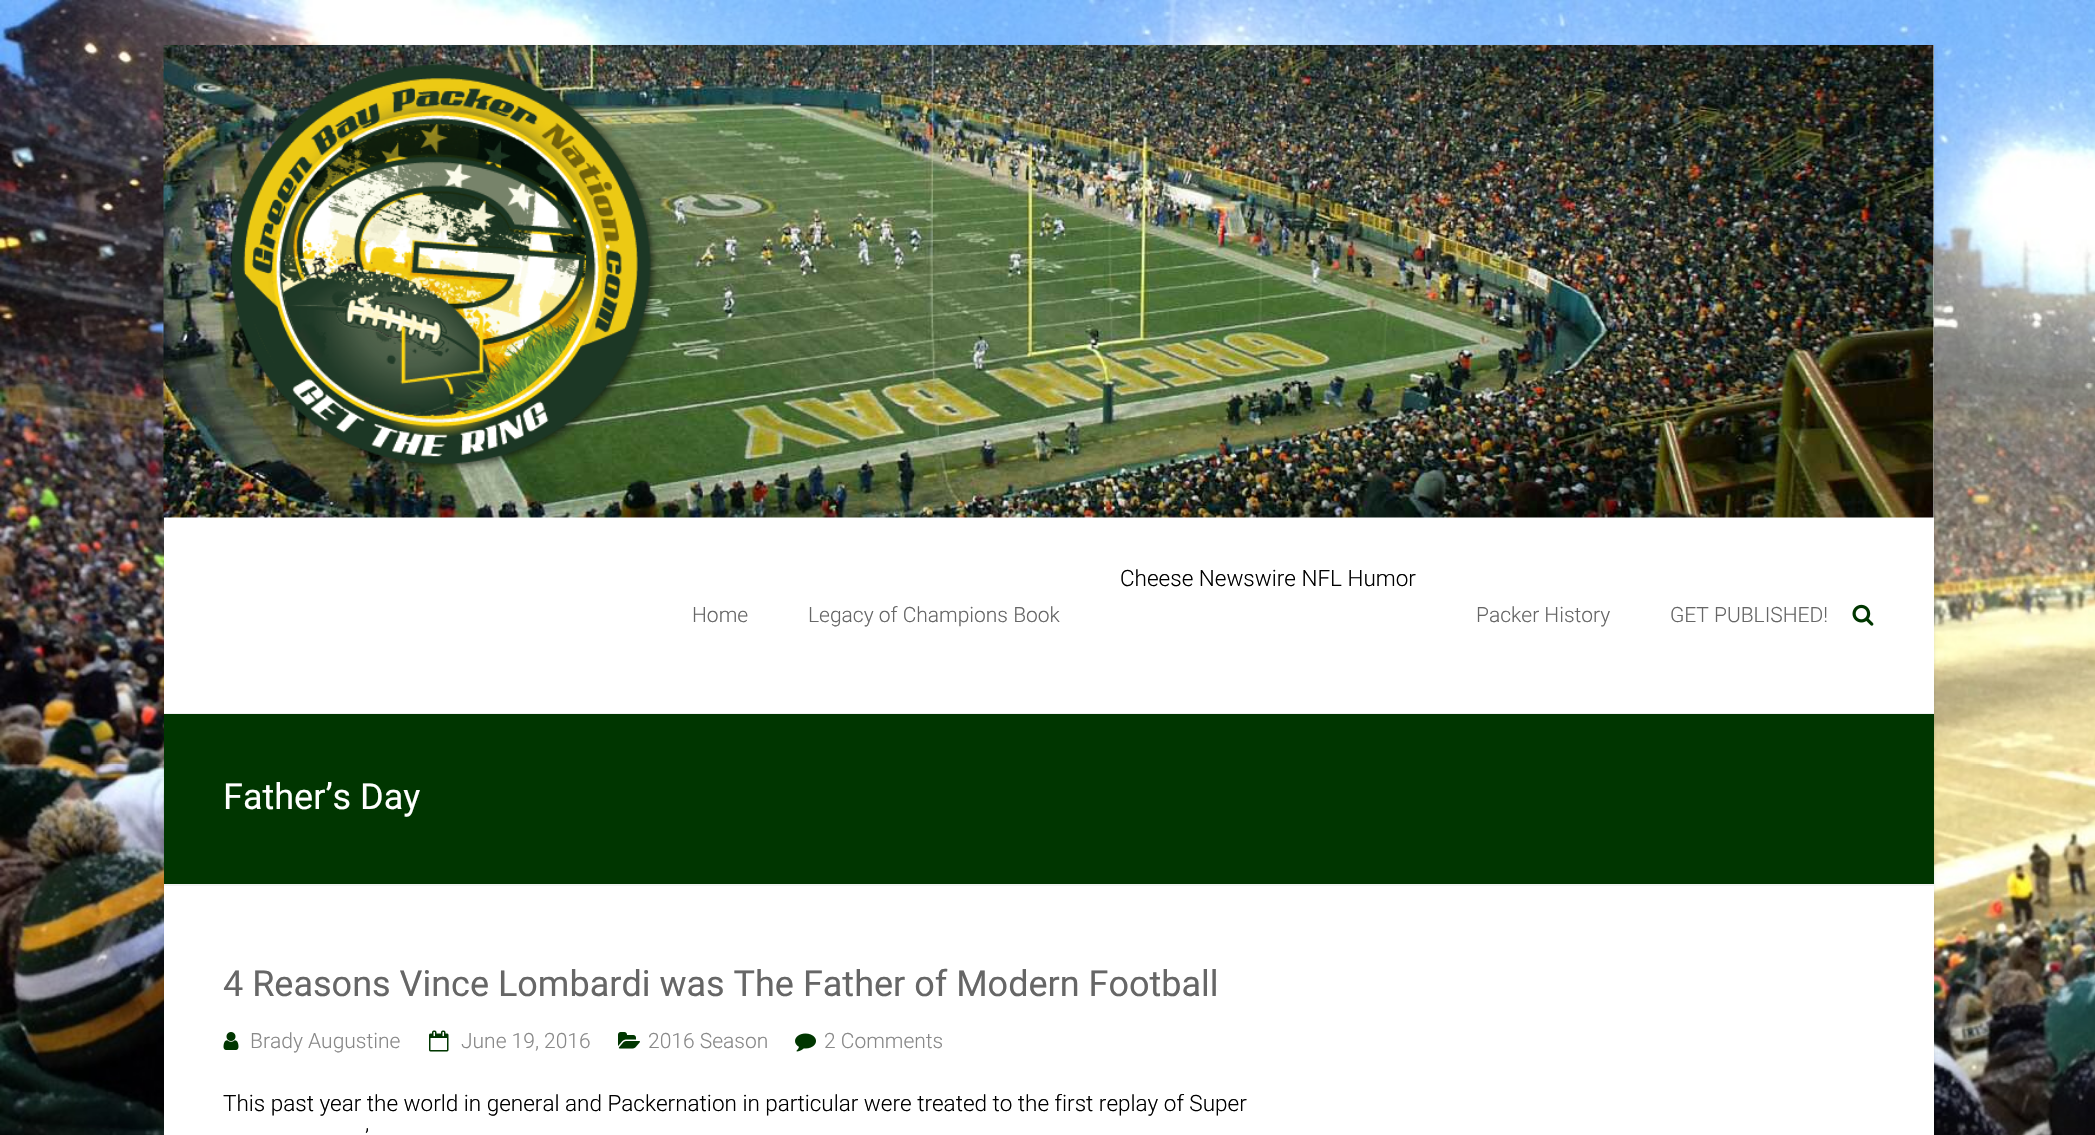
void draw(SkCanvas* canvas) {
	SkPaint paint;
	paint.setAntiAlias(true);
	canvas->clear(0xffffffff);
	canvas->drawImageRect(SkImages::DeferredFromEncodedData(SkData::MakeFromFileName("img1.png")), SkRect::MakeXYWH(0, 0, 2095, 1135), SkSamplingOptions());
	paint.setColor(0x1a000000);
	paint.setMaskFilter(SkMaskFilter::MakeBlur(kNormal_SkBlurStyle, 1.5));
	canvas->drawRect(SkRect::MakeXYWH(164, 47, 1770, 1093), paint);
	paint.setMaskFilter(nullptr);
	paint.setColor(0xffffffff);
	canvas->drawRect(SkRect::MakeXYWH(164, 45, 1770, 1090), paint);
	paint.setColor(0xfff2f2f2);
	canvas->drawRect(SkRect::MakeXYWH(164, 713, 1770, 1), paint);
	canvas->drawImageRect(SkImages::DeferredFromEncodedData(SkData::MakeFromFileName("img2.png")), SkRect::MakeXYWH(163, 45, 1771, 473), SkSamplingOptions());
	SkFont f1(fontMgr->matchFamilyStyle("Roboto", SkFontStyle(300, SkFontStyle::kNormal_Width, SkFontStyle::kUpright_Slant)), 22.5);
	f1.setSubpixel(true);
	paint.setColor(0xff000000);
	canvas->drawString("Cheese Newswire NFL Humor", 1120, 586, f1, paint);
	SkFont f2(fontMgr->matchFamilyStyle("Roboto", SkFontStyle(300, SkFontStyle::kNormal_Width, SkFontStyle::kUpright_Slant)), 21);
	f2.setSubpixel(true);
	paint.setColor(0xff666666);
	canvas->drawString("Home", 692, 622, f2, paint);
	canvas->drawString("Legacy of Champions Book", 808, 622, f2, paint);
	canvas->drawString("Packer History", 1476, 622, f2, paint);
	canvas->drawString("GET PUBLISHED!", 1670, 622, f2, paint);
	canvas->drawImageRect(SkImages::DeferredFromEncodedData(SkData::MakeFromFileName("img3.png")), SkRect::MakeXYWH(1852, 604, 22, 22), SkSamplingOptions());
	paint.setColor(0xff003600);
	canvas->drawRect(SkRect::MakeXYWH(164, 714, 1770, 170), paint);
	paint.setColor(0xfff2f2f2);
	canvas->drawRect(SkRect::MakeXYWH(164, 884, 1770, 2), paint);
	SkFont f3(fontMgr->matchFamilyStyle("Roboto", SkFontStyle::Normal()), 36);
	f3.setSubpixel(true);
	paint.setColor(0xffffffff);
	canvas->drawString("Father’s Day", 223, 809, f3, paint);
	paint.setColor(0xff666666);
	canvas->drawString("4 Reasons Vince Lombardi was The Father of Modern Football", 223, 996, f3, paint);
	canvas->drawImageRect(SkImages::DeferredFromEncodedData(SkData::MakeFromFileName("img4.png")), SkRect::MakeXYWH(223, 1032, 16, 18), SkSamplingOptions());
	paint.setColor(0xff888888);
	canvas->drawString("Brady Augustine", 250, 1048, f2, paint);
	canvas->drawImageRect(SkImages::DeferredFromEncodedData(SkData::MakeFromFileName("img5.png")), SkRect::MakeXYWH(429, 1030, 20, 22), SkSamplingOptions());
	canvas->drawString("June 19, 2016", 461, 1048, f2, paint);
	canvas->drawImageRect(SkImages::DeferredFromEncodedData(SkData::MakeFromFileName("img6.png")), SkRect::MakeXYWH(618, 1032, 22, 17), SkSamplingOptions());
	canvas->drawString("2016 Season", 648, 1048, f2, paint);
	canvas->drawImageRect(SkImages::DeferredFromEncodedData(SkData::MakeFromFileName("img7.png")), SkRect::MakeXYWH(795, 1033, 21, 19), SkSamplingOptions());
	canvas->drawString("2 Comments", 824, 1048, f2, paint);
	paint.setColor(0xff000000);
	canvas->drawString("This past year the world in general and Packernation in particular were treated to the first replay of Super", 223, 1111, f1, paint);
	canvas->drawString("’", 365, 1145, f1, paint);
}
